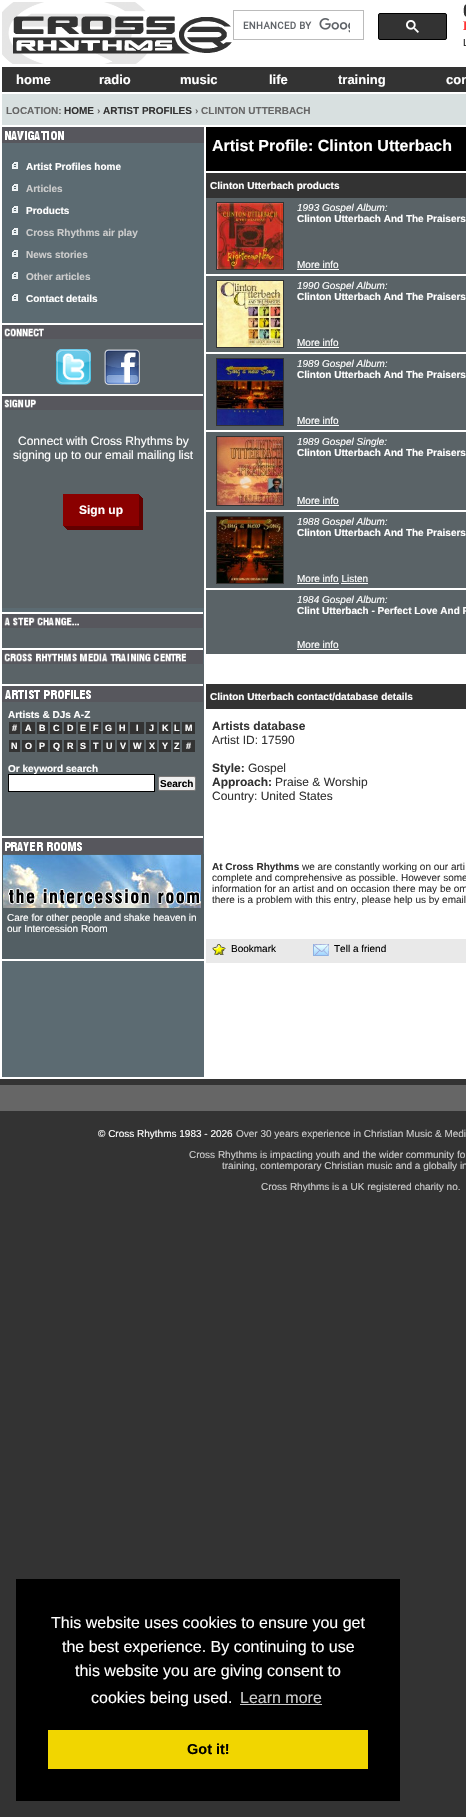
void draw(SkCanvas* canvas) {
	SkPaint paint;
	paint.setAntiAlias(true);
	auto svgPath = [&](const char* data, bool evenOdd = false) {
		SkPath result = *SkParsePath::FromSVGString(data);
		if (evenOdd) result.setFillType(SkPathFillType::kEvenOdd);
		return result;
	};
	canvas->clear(0xff333333);
	paint.setStroke(true);
	paint.setStrokeWidth(2);
	paint.setColor(0xffffffff);
	canvas->drawRect(SkRect::MakeXYWH(1, 1, 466, 1077), paint);
	canvas->drawImageRect(SkImages::DeferredFromEncodedData(SkData::MakeFromFileName("img1.png")), SkRect::MakeXYWH(206, 963, 260, 114), SkSamplingOptions());
	paint.setStroke(false);
	canvas->drawRect(SkRect::MakeXYWH(2, 2, 464, 65), paint);
	canvas->drawImageRect(SkImages::DeferredFromEncodedData(SkData::MakeFromFileName("img2.png")), SkRect::MakeXYWH(2, 2, 230, 62), SkSamplingOptions());
	paint.setStroke(true);
	paint.setStrokeWidth(1);
	paint.setColor(0xffbbbbbb);
	canvas->drawRect(SkRect::MakeXYWH(233.5, 10.5, 130, 29), paint);
	canvas->drawImageRect(SkImages::DeferredFromEncodedData(SkData::MakeFromFileName("img3.png")), SkRect::MakeXYWH(243, 18, 107, 15), SkSamplingOptions());
	paint.setStroke(false);
	paint.setColor(0xff333333);
	canvas->drawRoundRect(SkRect::MakeXYWH(378.5, 13.5, 68, 26), 1.5, 1.5, paint);
	paint.setStroke(true);
	paint.setColor(0xff000000);
	canvas->drawRoundRect(SkRect::MakeXYWH(378.5, 13.5, 68, 26), 1.5, 1.5, paint);
	canvas->drawImageRect(SkImages::DeferredFromEncodedData(SkData::MakeFromFileName("img4.png")), SkRect::MakeXYWH(406, 20, 13, 13), SkSamplingOptions());
	canvas->drawImageRect(SkImages::DeferredFromEncodedData(SkData::MakeFromFileName("img5.png")), SkRect::MakeXYWH(463, 4, 3, 13), SkSamplingOptions());
	SkFont f1(fontMgr->matchFamilyStyle("Liberation Serif", SkFontStyle::Bold()), 13);
	f1.setSubpixel(true);
	paint.setStroke(false);
	paint.setColor(0xffff3333);
	canvas->drawString("L", 463, 30, f1, paint);
	SkFont f2(fontMgr->matchFamilyStyle("Liberation Sans", SkFontStyle::Normal()), 10);
	f2.setSubpixel(true);
	paint.setColor(0xff222222);
	canvas->drawString("L", 463, 46, f2, paint);
	SkFont f3(fontMgr->matchFamilyStyle("Liberation Sans", SkFontStyle::Bold()), 13);
	f3.setSubpixel(true);
	paint.setColor(0xffffffff);
	canvas->drawString("home", 16, 84, f3, paint);
	canvas->drawString("radio", 99, 84, f3, paint);
	canvas->drawString("music", 180, 84, f3, paint);
	canvas->drawString("life", 269, 84, f3, paint);
	canvas->drawString("training", 338, 84, f3, paint);
	canvas->drawString("con", 446, 84, f3, paint);
	paint.setColor(0xffd8e0e0);
	canvas->drawRect(SkRect::MakeXYWH(2, 94, 464, 31), paint);
	paint.setColor(0xffffffff);
	canvas->drawRect(SkRect::MakeXYWH(2, 92, 464, 2), paint);
	SkFont f4(fontMgr->matchFamilyStyle("Liberation Sans", SkFontStyle::Bold()), 10);
	f4.setSubpixel(true);
	paint.setColor(0xff666666);
	canvas->drawString("LOCATION:", 6, 114, f4, paint);
	paint.setColor(0xff333333);
	canvas->drawString("HOME", 64, 114, f4, paint);
	paint.setColor(0xff666666);
	canvas->drawString("›", 97, 114, f4, paint);
	paint.setColor(0xff333333);
	canvas->drawString("ARTIST PROFILES", 103, 114, f4, paint);
	paint.setColor(0xff666666);
	canvas->drawString("› CLINTON UTTERBACH", 195, 114, f4, paint);
	paint.setColor(0xff5c6b72);
	canvas->drawRect(SkRect::MakeXYWH(2, 143, 202, 934), paint);
	paint.setColor(0xffffffff);
	canvas->drawRect(SkRect::MakeXYWH(2, 125, 204, 2), paint);
	canvas->drawRect(SkRect::MakeXYWH(204, 125, 2, 952), paint);
	paint.setColor(0xff57575d);
	canvas->drawRect(SkRect::MakeXYWH(2, 127, 202, 16), paint);
	canvas->drawImageRect(SkImages::DeferredFromEncodedData(SkData::MakeFromFileName("img6.png")), SkRect::MakeXYWH(5, 131, 59, 9), SkSamplingOptions());
	canvas->drawImageRect(SkImages::DeferredFromEncodedData(SkData::MakeFromFileName("img7.png")), SkRect::MakeXYWH(12, 162, 6, 7), SkSamplingOptions());
	paint.setColor(0xffffffff);
	canvas->drawString("Artist Profiles home", 26, 170, f4, paint);
	canvas->drawImageRect(SkImages::DeferredFromEncodedData(SkData::MakeFromFileName("img7.png")), SkRect::MakeXYWH(12, 184, 6, 7), SkSamplingOptions());
	paint.setColor(0xffcccccc);
	canvas->drawString("Articles", 26, 192, f4, paint);
	canvas->drawImageRect(SkImages::DeferredFromEncodedData(SkData::MakeFromFileName("img7.png")), SkRect::MakeXYWH(12, 206, 6, 7), SkSamplingOptions());
	paint.setColor(0xffffffff);
	canvas->drawString("Products", 26, 214, f4, paint);
	canvas->drawImageRect(SkImages::DeferredFromEncodedData(SkData::MakeFromFileName("img7.png")), SkRect::MakeXYWH(12, 228, 6, 7), SkSamplingOptions());
	paint.setColor(0xffcccccc);
	canvas->drawString("Cross Rhythms air play", 26, 236, f4, paint);
	canvas->drawImageRect(SkImages::DeferredFromEncodedData(SkData::MakeFromFileName("img7.png")), SkRect::MakeXYWH(12, 250, 6, 7), SkSamplingOptions());
	canvas->drawString("News stories", 26, 258, f4, paint);
	canvas->drawImageRect(SkImages::DeferredFromEncodedData(SkData::MakeFromFileName("img7.png")), SkRect::MakeXYWH(12, 272, 6, 7), SkSamplingOptions());
	canvas->drawString("Other articles", 26, 280, f4, paint);
	canvas->drawImageRect(SkImages::DeferredFromEncodedData(SkData::MakeFromFileName("img7.png")), SkRect::MakeXYWH(12, 294, 6, 7), SkSamplingOptions());
	paint.setColor(0xffffffff);
	canvas->drawString("Contact details", 26, 302, f4, paint);
	paint.setColor(0xff57575d);
	canvas->drawRect(SkRect::MakeXYWH(2, 325, 201, 14), paint);
	paint.setColor(0xffffffff);
	canvas->drawRect(SkRect::MakeXYWH(2, 323, 201, 2), paint);
	canvas->drawImageRect(SkImages::DeferredFromEncodedData(SkData::MakeFromFileName("img8.png")), SkRect::MakeXYWH(4, 328, 40, 9), SkSamplingOptions());
	paint.setColor(0xff5a6367);
	canvas->drawRect(SkRect::MakeXYWH(2, 339, 202, 55), paint);
	canvas->drawImageRect(SkImages::DeferredFromEncodedData(SkData::MakeFromFileName("img9.png")), SkRect::MakeXYWH(56, 349, 35, 36), SkSamplingOptions());
	canvas->drawImageRect(SkImages::DeferredFromEncodedData(SkData::MakeFromFileName("img10.png")), SkRect::MakeXYWH(104, 349, 36, 36), SkSamplingOptions());
	paint.setColor(0xff57575d);
	canvas->drawRect(SkRect::MakeXYWH(2, 396, 201, 14), paint);
	paint.setColor(0xffffffff);
	canvas->drawRect(SkRect::MakeXYWH(2, 394, 201, 2), paint);
	canvas->drawImageRect(SkImages::DeferredFromEncodedData(SkData::MakeFromFileName("img11.png")), SkRect::MakeXYWH(4, 399, 32, 9), SkSamplingOptions());
	paint.setColor(0xff5a6367);
	canvas->drawRect(SkRect::MakeXYWH(2, 410, 202, 198), paint);
	SkFont f5(fontMgr->matchFamilyStyle("Liberation Sans", SkFontStyle::Normal()), 12);
	f5.setSubpixel(true);
	paint.setColor(0xffffffff);
	canvas->drawString("Connect with Cross Rhythms by", 18, 445, f5, paint);
	canvas->drawString("signing up to our email mailing list", 13, 459, f5, paint);
	paint.setColor(0xff620000);
	canvas->drawPath(svgPath("M67 526V530H143V498H139V526Z"), paint);
	canvas->drawPath(svgPath("M66 526V529H142V497H139V526Z"), paint);
	canvas->drawPath(svgPath("M65 526V528H141V496H139V526Z"), paint);
	canvas->drawPath(svgPath("M64 526V527H140V495H139V526Z"), paint);
	paint.setColor(0xff8a0000);
	canvas->drawRect(SkRect::MakeXYWH(63, 494, 76, 32), paint);
	SkFont f6(fontMgr->matchFamilyStyle("Liberation Sans", SkFontStyle::Bold()), 12);
	f6.setSubpixel(true);
	paint.setColor(0xffffffff);
	canvas->drawString("Sign up", 79, 514, f6, paint);
	paint.setColor(0xff57575d);
	canvas->drawRect(SkRect::MakeXYWH(2, 614, 201, 14), paint);
	paint.setColor(0xffffffff);
	canvas->drawRect(SkRect::MakeXYWH(2, 612, 201, 2), paint);
	canvas->drawImageRect(SkImages::DeferredFromEncodedData(SkData::MakeFromFileName("img12.png")), SkRect::MakeXYWH(4, 617, 75, 9), SkSamplingOptions());
	paint.setColor(0xff5a6367);
	canvas->drawRect(SkRect::MakeXYWH(2, 628, 202, 20), paint);
	paint.setColor(0xff57575d);
	canvas->drawRect(SkRect::MakeXYWH(2, 650, 201, 14), paint);
	paint.setColor(0xffffffff);
	canvas->drawRect(SkRect::MakeXYWH(2, 648, 201, 2), paint);
	canvas->drawImageRect(SkImages::DeferredFromEncodedData(SkData::MakeFromFileName("img13.png")), SkRect::MakeXYWH(4, 653, 182, 9), SkSamplingOptions());
	paint.setColor(0xff5a6367);
	canvas->drawRect(SkRect::MakeXYWH(2, 664, 202, 172), paint);
	paint.setColor(0xff57575d);
	canvas->drawRect(SkRect::MakeXYWH(2, 686, 201, 16), paint);
	paint.setColor(0xffffffff);
	canvas->drawRect(SkRect::MakeXYWH(2, 684, 201, 2), paint);
	canvas->drawImageRect(SkImages::DeferredFromEncodedData(SkData::MakeFromFileName("img14.png")), SkRect::MakeXYWH(5, 690, 86, 9), SkSamplingOptions());
	canvas->drawString("Artists & DJs A-Z", 8, 718, f4, paint);
	paint.setColor(0xff333333);
	canvas->drawRect(SkRect::MakeXYWH(9, 722, 11, 12), paint);
	SkFont f7(fontMgr->matchFamilyStyle("Liberation Sans", SkFontStyle::Bold()), 9);
	f7.setSubpixel(true);
	paint.setColor(0xffffffff);
	canvas->drawString("#", 12, 731, f7, paint);
	paint.setColor(0xff333333);
	canvas->drawRect(SkRect::MakeXYWH(22, 722, 13, 12), paint);
	paint.setColor(0xffffffff);
	canvas->drawString("A", 25, 731, f7, paint);
	paint.setColor(0xff333333);
	canvas->drawRect(SkRect::MakeXYWH(37, 722, 11, 12), paint);
	paint.setColor(0xffffffff);
	canvas->drawString("B", 39, 731, f7, paint);
	paint.setColor(0xff333333);
	canvas->drawRect(SkRect::MakeXYWH(50, 722, 12, 12), paint);
	paint.setColor(0xffffffff);
	canvas->drawString("C", 53, 731, f7, paint);
	paint.setColor(0xff333333);
	canvas->drawRect(SkRect::MakeXYWH(64, 722, 12, 12), paint);
	paint.setColor(0xffffffff);
	canvas->drawString("D", 67, 731, f7, paint);
	paint.setColor(0xff333333);
	canvas->drawRect(SkRect::MakeXYWH(78, 722, 11, 12), paint);
	paint.setColor(0xffffffff);
	canvas->drawString("E", 80, 731, f7, paint);
	paint.setColor(0xff333333);
	canvas->drawRect(SkRect::MakeXYWH(91, 722, 10, 12), paint);
	paint.setColor(0xffffffff);
	canvas->drawString("F", 93, 731, f7, paint);
	paint.setColor(0xff333333);
	canvas->drawRect(SkRect::MakeXYWH(103, 722, 12, 12), paint);
	paint.setColor(0xffffffff);
	canvas->drawString("G", 105, 731, f7, paint);
	paint.setColor(0xff333333);
	canvas->drawRect(SkRect::MakeXYWH(117, 722, 11, 12), paint);
	paint.setColor(0xffffffff);
	canvas->drawString("H", 119, 731, f7, paint);
	paint.setColor(0xff333333);
	canvas->drawRect(SkRect::MakeXYWH(130, 722, 14, 12), paint);
	paint.setColor(0xffffffff);
	canvas->drawString("I", 136, 731, f7, paint);
	paint.setColor(0xff333333);
	canvas->drawRect(SkRect::MakeXYWH(146, 722, 11, 12), paint);
	paint.setColor(0xffffffff);
	canvas->drawString("J", 149, 731, f7, paint);
	paint.setColor(0xff333333);
	canvas->drawRect(SkRect::MakeXYWH(159, 722, 12, 12), paint);
	paint.setColor(0xffffffff);
	canvas->drawString("K", 162, 731, f7, paint);
	paint.setColor(0xff333333);
	canvas->drawRect(SkRect::MakeXYWH(173, 722, 7, 12), paint);
	paint.setColor(0xffffffff);
	canvas->drawString("L", 174, 731, f7, paint);
	paint.setColor(0xff333333);
	canvas->drawRect(SkRect::MakeXYWH(182, 722, 13, 12), paint);
	paint.setColor(0xffffffff);
	canvas->drawString("M", 185, 731, f7, paint);
	paint.setColor(0xff333333);
	canvas->drawRect(SkRect::MakeXYWH(9, 740, 11, 12), paint);
	paint.setColor(0xffffffff);
	canvas->drawString("N", 11, 749, f7, paint);
	paint.setColor(0xff333333);
	canvas->drawRect(SkRect::MakeXYWH(22, 740, 13, 12), paint);
	paint.setColor(0xffffffff);
	canvas->drawString("O", 25, 749, f7, paint);
	paint.setColor(0xff333333);
	canvas->drawRect(SkRect::MakeXYWH(37, 740, 11, 12), paint);
	paint.setColor(0xffffffff);
	canvas->drawString("P", 39, 749, f7, paint);
	paint.setColor(0xff333333);
	canvas->drawRect(SkRect::MakeXYWH(50, 740, 12, 12), paint);
	paint.setColor(0xffffffff);
	canvas->drawString("Q", 53, 749, f7, paint);
	paint.setColor(0xff333333);
	canvas->drawRect(SkRect::MakeXYWH(64, 740, 12, 12), paint);
	paint.setColor(0xffffffff);
	canvas->drawString("R", 67, 749, f7, paint);
	paint.setColor(0xff333333);
	canvas->drawRect(SkRect::MakeXYWH(78, 740, 11, 12), paint);
	paint.setColor(0xffffffff);
	canvas->drawString("S", 80, 749, f7, paint);
	paint.setColor(0xff333333);
	canvas->drawRect(SkRect::MakeXYWH(91, 740, 10, 12), paint);
	paint.setColor(0xffffffff);
	canvas->drawString("T", 93, 749, f7, paint);
	paint.setColor(0xff333333);
	canvas->drawRect(SkRect::MakeXYWH(103, 740, 12, 12), paint);
	paint.setColor(0xffffffff);
	canvas->drawString("U", 106, 749, f7, paint);
	paint.setColor(0xff333333);
	canvas->drawRect(SkRect::MakeXYWH(117, 740, 11, 12), paint);
	paint.setColor(0xffffffff);
	canvas->drawString("V", 120, 749, f7, paint);
	paint.setColor(0xff333333);
	canvas->drawRect(SkRect::MakeXYWH(130, 740, 14, 12), paint);
	paint.setColor(0xffffffff);
	canvas->drawString("W", 133, 749, f7, paint);
	paint.setColor(0xff333333);
	canvas->drawRect(SkRect::MakeXYWH(146, 740, 11, 12), paint);
	paint.setColor(0xffffffff);
	canvas->drawString("X", 149, 749, f7, paint);
	paint.setColor(0xff333333);
	canvas->drawRect(SkRect::MakeXYWH(159, 740, 12, 12), paint);
	paint.setColor(0xffffffff);
	canvas->drawString("Y", 162, 749, f7, paint);
	paint.setColor(0xff333333);
	canvas->drawRect(SkRect::MakeXYWH(173, 740, 7, 12), paint);
	paint.setColor(0xffffffff);
	canvas->drawString("Z", 174, 749, f7, paint);
	paint.setColor(0xff333333);
	canvas->drawRect(SkRect::MakeXYWH(182, 740, 13, 12), paint);
	paint.setColor(0xffffffff);
	canvas->drawString("#", 186, 749, f7, paint);
	canvas->drawString("Or keyword search", 8, 772, f4, paint);
	canvas->drawRect(SkRect::MakeXYWH(8.5, 774.5, 146, 17), paint);
	paint.setStroke(true);
	paint.setColor(0xff000000);
	canvas->drawRect(SkRect::MakeXYWH(8.5, 774.5, 146, 17), paint);
	paint.setStroke(false);
	paint.setColor(0xffefefef);
	canvas->drawRoundRect(SkRect::MakeXYWH(158.5, 776.5, 37, 14), 1.5, 1.5, paint);
	paint.setStroke(true);
	paint.setColor(0xff767676);
	canvas->drawRoundRect(SkRect::MakeXYWH(158.5, 776.5, 37, 14), 1.5, 1.5, paint);
	paint.setStroke(false);
	paint.setColor(0xff000000);
	canvas->drawString("Search", 160, 787, f4, paint);
	paint.setColor(0xff57575d);
	canvas->drawRect(SkRect::MakeXYWH(2, 838, 201, 16), paint);
	paint.setColor(0xffffffff);
	canvas->drawRect(SkRect::MakeXYWH(2, 836, 201, 2), paint);
	canvas->drawImageRect(SkImages::DeferredFromEncodedData(SkData::MakeFromFileName("img15.png")), SkRect::MakeXYWH(5, 842, 77, 9), SkSamplingOptions());
	paint.setColor(0xff535f64);
	canvas->drawRect(SkRect::MakeXYWH(2, 854, 202, 105), paint);
	canvas->drawImageRect(SkImages::DeferredFromEncodedData(SkData::MakeFromFileName("img16.png")), SkRect::MakeXYWH(3, 855, 198, 53), SkSamplingOptions());
	paint.setColor(0xffffffff);
	canvas->drawString("Care for other people and shake heaven in", 7, 921, f2, paint);
	canvas->drawString("our Intercession Room", 7, 932, f2, paint);
	canvas->drawRect(SkRect::MakeXYWH(2, 959, 202, 2), paint);
	canvas->drawRect(SkRect::MakeXYWH(206, 125, 260, 814), paint);
	paint.setColor(0xff000000);
	canvas->drawRect(SkRect::MakeXYWH(206, 127, 260, 44), paint);
	SkFont f8(fontMgr->matchFamilyStyle("Liberation Sans", SkFontStyle::Bold()), 16);
	f8.setSubpixel(true);
	paint.setColor(0xffffffff);
	canvas->drawString("Artist Profile: Clinton Utterbach", 212, 151, f8, paint);
	paint.setColor(0xff333333);
	canvas->drawRect(SkRect::MakeXYWH(206, 173, 260, 25), paint);
	paint.setColor(0xffffffff);
	canvas->drawString("Clinton Utterbach products", 210, 189, f4, paint);
	paint.setColor(0xff5a6367);
	canvas->drawRect(SkRect::MakeXYWH(206, 198, 260, 76), paint);
	paint.setStroke(true);
	paint.setColor(0xff333333);
	canvas->drawRect(SkRect::MakeXYWH(216.5, 202.5, 67, 67), paint);
	canvas->drawImageRect(SkImages::DeferredFromEncodedData(SkData::MakeFromFileName("img17.png")), SkRect::MakeXYWH(217, 203, 66, 66), SkSamplingOptions());
	SkFont f9(fontMgr->matchFamilyStyle("Liberation Sans", SkFontStyle::Italic()), 10);
	f9.setSubpixel(true);
	paint.setStroke(false);
	paint.setColor(0xffffffff);
	canvas->drawString("1993 Gospel Album:", 297, 211, f9, paint);
	canvas->drawString("Clinton Utterbach And The Praisers", 297, 222, f4, paint);
	canvas->drawString("More info", 297, 268, f2, paint);
	canvas->drawRect(SkRect::MakeXYWH(297, 269, 42, 1), paint);
	paint.setColor(0xff5a6367);
	canvas->drawRect(SkRect::MakeXYWH(206, 276, 260, 76), paint);
	paint.setStroke(true);
	paint.setColor(0xff333333);
	canvas->drawRect(SkRect::MakeXYWH(216.5, 280.5, 67, 67), paint);
	canvas->drawImageRect(SkImages::DeferredFromEncodedData(SkData::MakeFromFileName("img18.png")), SkRect::MakeXYWH(217, 281, 66, 66), SkSamplingOptions());
	paint.setStroke(false);
	paint.setColor(0xffffffff);
	canvas->drawString("1990 Gospel Album:", 297, 289, f9, paint);
	canvas->drawString("Clinton Utterbach And The Praisers", 297, 300, f4, paint);
	canvas->drawString("More info", 297, 346, f2, paint);
	canvas->drawRect(SkRect::MakeXYWH(297, 347, 42, 1), paint);
	paint.setColor(0xff5a6367);
	canvas->drawRect(SkRect::MakeXYWH(206, 354, 260, 76), paint);
	paint.setStroke(true);
	paint.setColor(0xff333333);
	canvas->drawRect(SkRect::MakeXYWH(216.5, 358.5, 67, 67), paint);
	canvas->drawImageRect(SkImages::DeferredFromEncodedData(SkData::MakeFromFileName("img19.png")), SkRect::MakeXYWH(217, 359, 66, 66), SkSamplingOptions());
	paint.setStroke(false);
	paint.setColor(0xffffffff);
	canvas->drawString("1989 Gospel Album:", 297, 367, f9, paint);
	canvas->drawString("Clinton Utterbach And The Praisers", 297, 378, f4, paint);
	canvas->drawString("More info", 297, 424, f2, paint);
	canvas->drawRect(SkRect::MakeXYWH(297, 425, 42, 1), paint);
	paint.setColor(0xff5a6367);
	canvas->drawRect(SkRect::MakeXYWH(206, 432, 260, 78), paint);
	paint.setStroke(true);
	paint.setColor(0xff333333);
	canvas->drawRect(SkRect::MakeXYWH(216.5, 436.5, 67, 69), paint);
	canvas->drawImageRect(SkImages::DeferredFromEncodedData(SkData::MakeFromFileName("img20.png")), SkRect::MakeXYWH(217, 437, 66, 68), SkSamplingOptions());
	paint.setStroke(false);
	paint.setColor(0xffffffff);
	canvas->drawString("1989 Gospel Single:", 297, 445, f9, paint);
	canvas->drawString("Clinton Utterbach And The Praisers", 297, 456, f4, paint);
	canvas->drawString("More info", 297, 504, f2, paint);
	canvas->drawRect(SkRect::MakeXYWH(297, 505, 42, 1), paint);
	paint.setColor(0xff5a6367);
	canvas->drawRect(SkRect::MakeXYWH(206, 512, 260, 76), paint);
	paint.setStroke(true);
	paint.setColor(0xff333333);
	canvas->drawRect(SkRect::MakeXYWH(216.5, 516.5, 67, 67), paint);
	canvas->drawImageRect(SkImages::DeferredFromEncodedData(SkData::MakeFromFileName("img21.png")), SkRect::MakeXYWH(217, 517, 66, 66), SkSamplingOptions());
	paint.setStroke(false);
	paint.setColor(0xffffffff);
	canvas->drawString("1988 Gospel Album:", 297, 525, f9, paint);
	canvas->drawString("Clinton Utterbach And The Praisers", 297, 536, f4, paint);
	canvas->drawString("More info Listen", 297, 582, f2, paint);
	canvas->drawRect(SkRect::MakeXYWH(297, 583, 42, 1), paint);
	canvas->drawRect(SkRect::MakeXYWH(341, 583, 27, 1), paint);
	paint.setColor(0xff5a6367);
	canvas->drawRect(SkRect::MakeXYWH(206, 590, 260, 64), paint);
	paint.setColor(0xffffffff);
	canvas->drawString("1984 Gospel Album:", 297, 603, f9, paint);
	canvas->drawString("Clint Utterbach - Perfect Love And P", 297, 614, f4, paint);
	canvas->drawString("More info", 297, 648, f2, paint);
	canvas->drawRect(SkRect::MakeXYWH(297, 649, 42, 1), paint);
	paint.setColor(0xff333333);
	canvas->drawRect(SkRect::MakeXYWH(206, 684, 260, 25), paint);
	paint.setColor(0xffffffff);
	canvas->drawString("Clinton Utterbach contact/database details", 210, 700, f4, paint);
	paint.setColor(0xff333333);
	canvas->drawString("Artists database", 212, 730, f6, paint);
	canvas->drawString("Artist ID: 17590", 212, 744, f5, paint);
	canvas->drawString("Style:", 212, 772, f6, paint);
	canvas->drawString("Gospel", 248, 772, f5, paint);
	canvas->drawString("Approach:", 212, 786, f6, paint);
	canvas->drawString("Praise & Worship", 275, 786, f5, paint);
	canvas->drawString("Country: United States", 212, 800, f5, paint);
	canvas->drawString("At Cross Rhythms", 212, 870, f4, paint);
	canvas->drawString("we are constantly working on our arti", 302, 870, f2, paint);
	canvas->drawString("complete and comprehensive as possible. However some", 212, 881, f2, paint);
	canvas->drawString("information for an artist and on occasion there may be om", 212, 892, f2, paint);
	canvas->drawString("there is a problem with this entry, please help us by email", 212, 903, f2, paint);
	paint.setColor(0xffe9e9e9);
	canvas->drawRect(SkRect::MakeXYWH(206, 939, 260, 24), paint);
	canvas->drawImageRect(SkImages::DeferredFromEncodedData(SkData::MakeFromFileName("img22.png")), SkRect::MakeXYWH(212, 944, 14, 11), SkSamplingOptions());
	paint.setColor(0xff000000);
	canvas->drawString("Bookmark", 231, 952, f2, paint);
	canvas->drawImageRect(SkImages::DeferredFromEncodedData(SkData::MakeFromFileName("img23.png")), SkRect::MakeXYWH(313, 944, 17, 12), SkSamplingOptions());
	canvas->drawString("Tell a friend", 334, 952, f2, paint);
	paint.setColor(0xff666666);
	canvas->drawRect(SkRect::MakeXYWH(0, 1085, 466, 26), paint);
	paint.setColor(0xffffffff);
	canvas->drawString("© Cross Rhythms 1983 - 2026", 98, 1137, f2, paint);
	paint.setColor(0xffcccccc);
	canvas->drawString("Over 30 years experience in Christian Music & Medi", 236, 1137, f2, paint);
	canvas->drawString("Cross Rhythms is impacting youth and the wider community fo", 189, 1158, f2, paint);
	canvas->drawString("training, contemporary Christian music and a globally in", 222, 1169, f2, paint);
	canvas->drawString("Cross Rhythms is a UK registered charity no.", 261, 1190, f2, paint);
	paint.setColor(0xff000000);
	canvas->drawRect(SkRect::MakeXYWH(16, 1579, 384, 222), paint);
	SkFont f10(fontMgr->matchFamilyStyle("Liberation Sans", SkFontStyle::Normal()), 16);
	f10.setSubpixel(true);
	paint.setColor(0xffffffff);
	canvas->drawString("This website uses cookies to ensure you get", 51, 1628, f10, paint);
	canvas->drawString("the best experience. By continuing to use", 62, 1652, f10, paint);
	canvas->drawString("this website you are giving consent to", 75, 1676, f10, paint);
	canvas->drawString("cookies being used.", 91, 1703, f10, paint);
	paint.setColor(0xffcccccc);
	canvas->drawString("Learn more", 240, 1703, f10, paint);
	canvas->drawRect(SkRect::MakeXYWH(240, 1704, 82, 1), paint);
	paint.setColor(0xfff1d600);
	canvas->drawRect(SkRect::MakeXYWH(48, 1730, 320, 39), paint);
	SkFont f11(fontMgr->matchFamilyStyle("Liberation Sans", SkFontStyle::Bold()), 14.5);
	f11.setSubpixel(true);
	paint.setColor(0xff000000);
	canvas->drawString("Got it!", 187, 1754, f11, paint);
}
